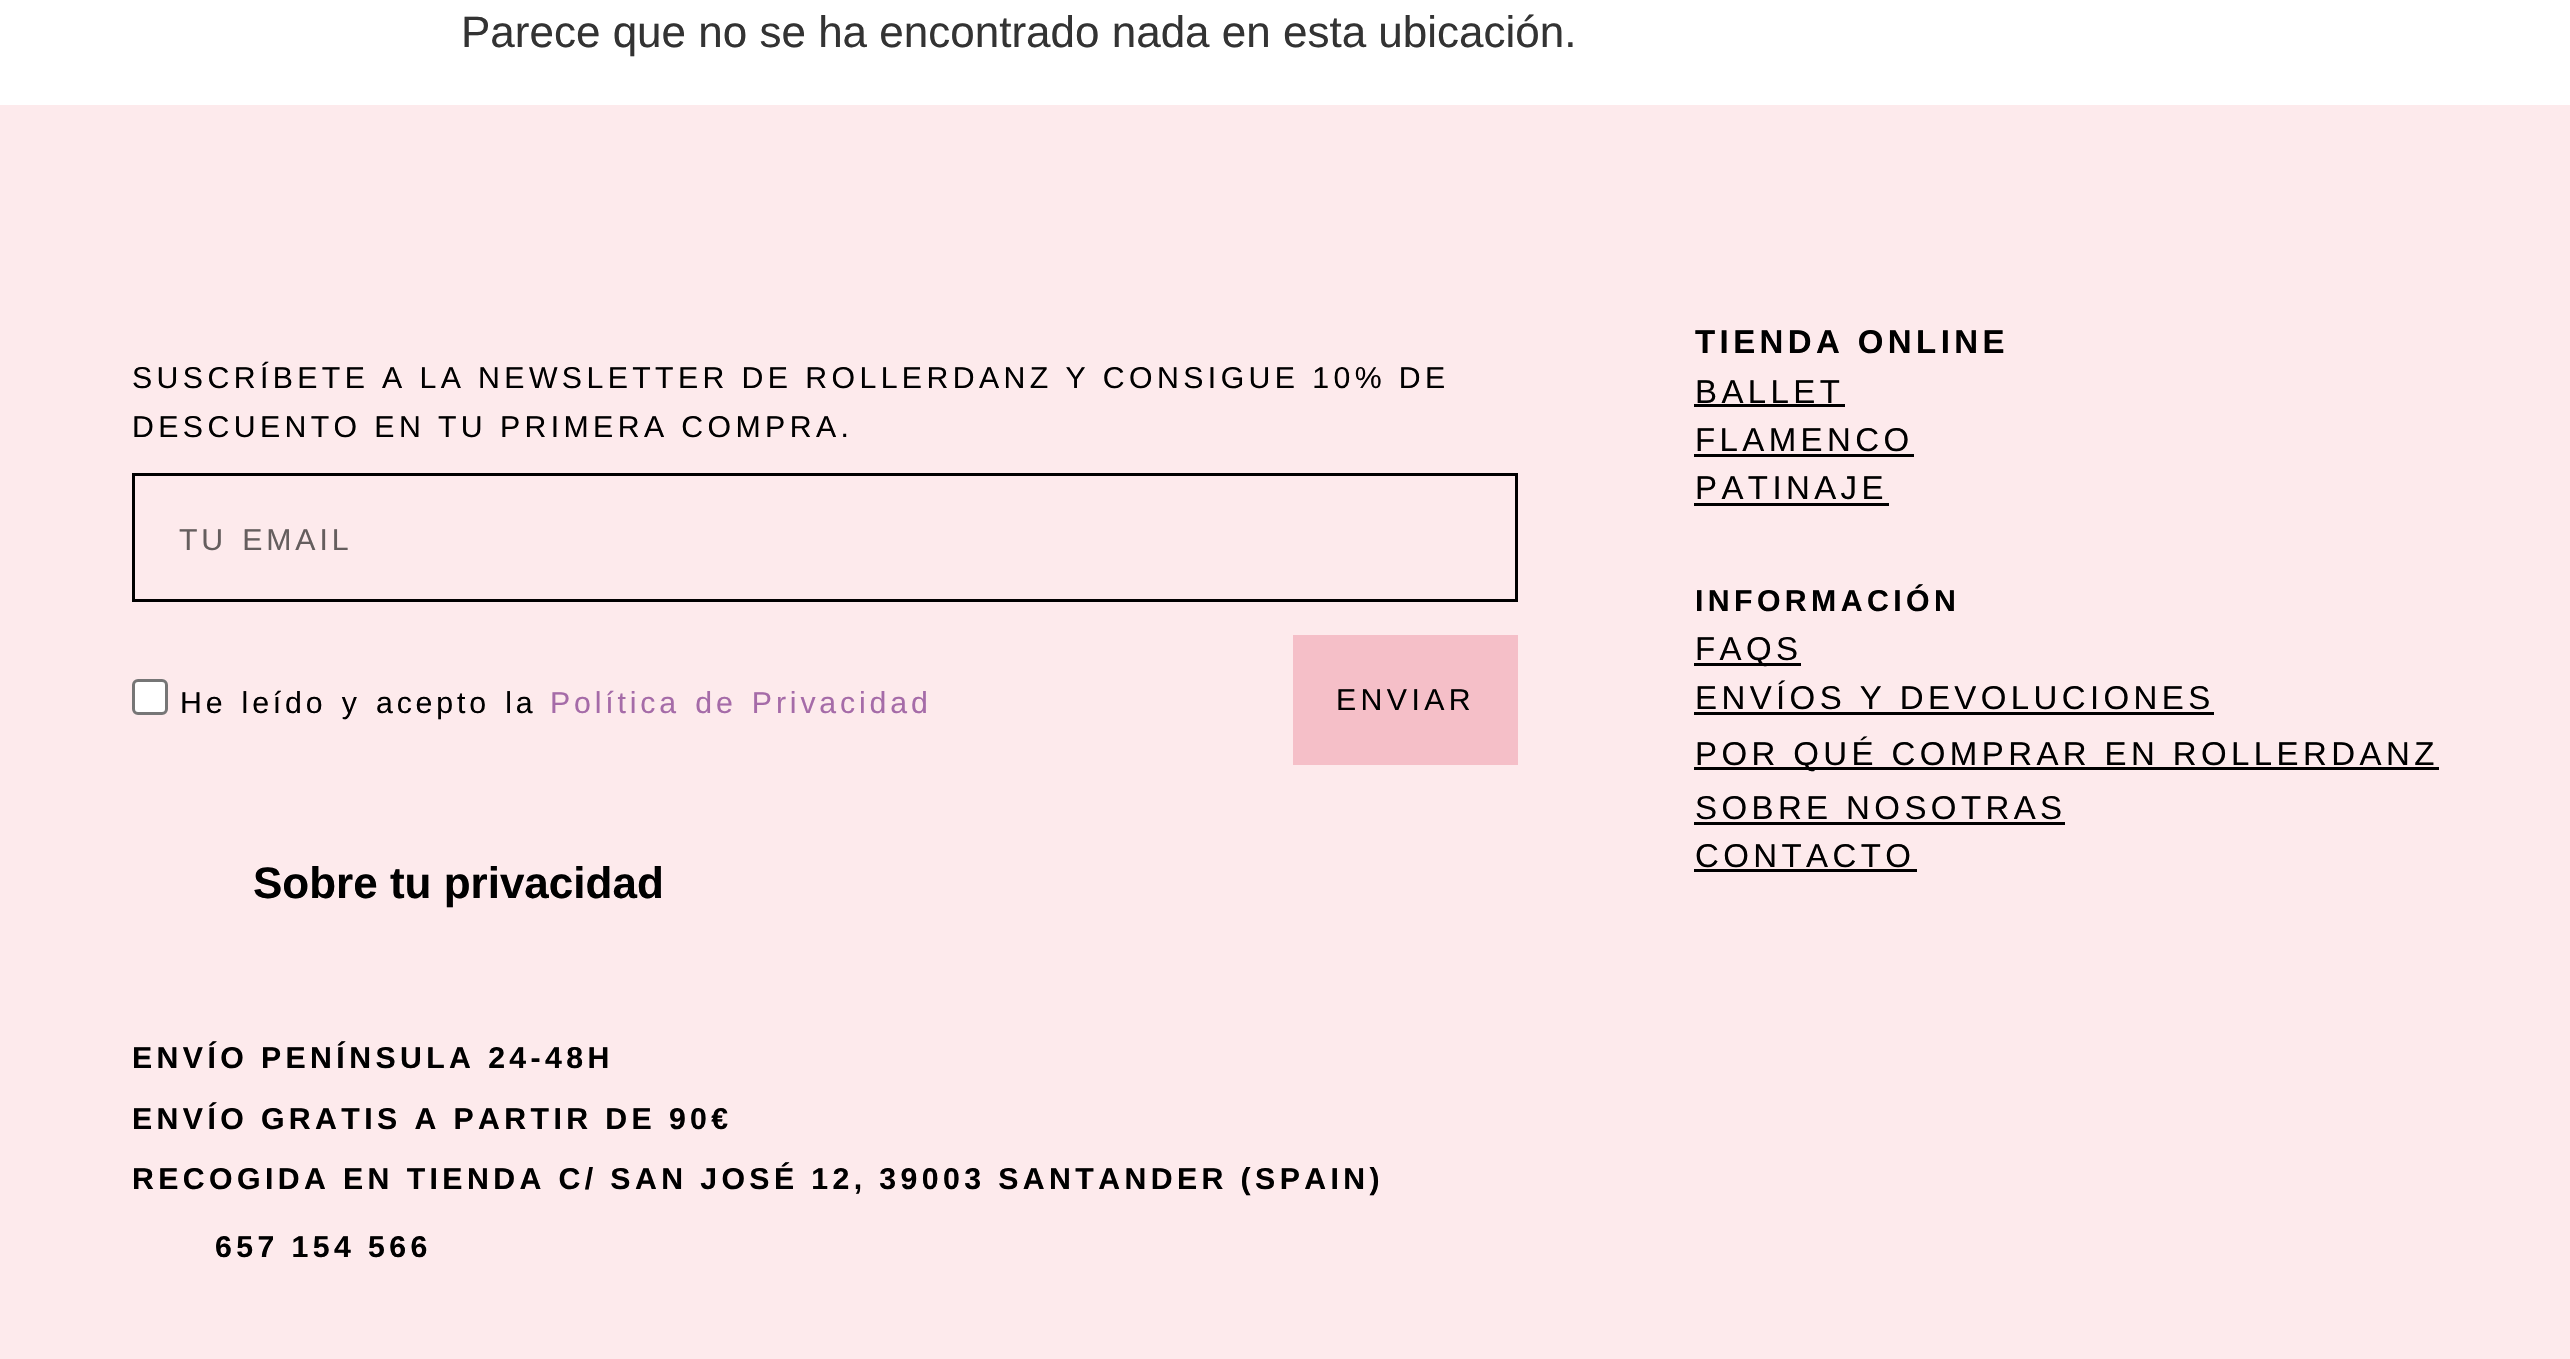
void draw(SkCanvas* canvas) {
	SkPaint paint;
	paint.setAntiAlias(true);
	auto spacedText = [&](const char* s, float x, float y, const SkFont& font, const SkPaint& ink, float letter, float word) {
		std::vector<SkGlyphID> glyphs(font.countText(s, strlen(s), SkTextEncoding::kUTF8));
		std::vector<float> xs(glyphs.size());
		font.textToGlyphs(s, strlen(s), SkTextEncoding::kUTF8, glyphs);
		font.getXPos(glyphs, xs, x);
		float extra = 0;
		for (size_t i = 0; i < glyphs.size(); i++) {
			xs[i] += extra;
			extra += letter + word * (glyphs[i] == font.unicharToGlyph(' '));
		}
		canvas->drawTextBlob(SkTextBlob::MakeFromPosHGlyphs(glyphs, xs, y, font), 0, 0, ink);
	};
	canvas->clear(0xffffffff);
	SkFont f1(fontMgr->matchFamilyStyle("Liberation Sans", SkFontStyle::Normal()), 44);
	f1.setSubpixel(true);
	paint.setColor(0xff333333);
	canvas->drawString("Parece que no se ha encontrado nada en esta ubicación.", 461, 47, f1, paint);
	paint.setColor(0xfffdeaec);
	canvas->drawRect(SkRect::MakeXYWH(0, 105, 2570, 1254), paint);
	SkFont f2(fontMgr->matchFamilyStyle("Liberation Sans", SkFontStyle::Normal()), 30.25);
	f2.setSubpixel(true);
	paint.setColor(0xff000000);
	spacedText("SUSCRÍBETE A LA NEWSLETTER DE ROLLERDANZ Y CONSIGUE 10% DE", 132, 388, f2, paint, 4.4, 0);
	spacedText("DESCUENTO EN TU PRIMERA COMPRA.", 132, 437, f2, paint, 4.4, 0);
	paint.setStroke(true);
	paint.setStrokeWidth(3);
	canvas->drawRect(SkRect::MakeXYWH(133.5, 474.5, 1383, 126), paint);
	paint.setStroke(false);
	paint.setColor(0xff655e5e);
	spacedText("TU EMAIL", 179, 550, f2, paint, 3.85, 3);
	paint.setColor(0xffffffff);
	canvas->drawRoundRect(SkRect::MakeXYWH(133.5, 680.5, 33, 33), 4.5, 4.5, paint);
	paint.setStroke(true);
	paint.setColor(0xff767676);
	canvas->drawRoundRect(SkRect::MakeXYWH(133.5, 680.5, 33, 33), 4.5, 4.5, paint);
	paint.setStroke(false);
	paint.setColor(0xff000000);
	spacedText("He leído y acepto la", 180, 713, f2, paint, 3.85, 3);
	paint.setColor(0xffa56ba8);
	spacedText("Política de Privacidad", 550, 713, f2, paint, 3.85, 3);
	paint.setColor(0xfff5bfc8);
	canvas->drawRect(SkRect::MakeXYWH(1293, 635, 225, 130), paint);
	paint.setColor(0xff000000);
	spacedText("ENVIAR", 1336, 710, f2, paint, 4.4, 0);
	SkFont f3(fontMgr->matchFamilyStyle("Liberation Sans", SkFontStyle::Bold()), 44);
	f3.setSubpixel(true);
	canvas->drawString("Sobre tu privacidad", 253, 898, f3, paint);
	SkFont f4(fontMgr->matchFamilyStyle("Liberation Sans", SkFontStyle::Bold()), 30.25);
	f4.setSubpixel(true);
	spacedText("ENVÍO PENÍNSULA 24-48H", 132, 1068, f4, paint, 4.4, 0);
	spacedText("ENVÍO GRATIS A PARTIR DE 90€", 132, 1129, f4, paint, 4.4, 0);
	spacedText("RECOGIDA EN TIENDA C/ SAN JOSÉ 12, 39003 SANTANDER (SPAIN)", 132, 1189, f4, paint, 4.4, 0);
	spacedText("657 154 566", 215, 1257, f4, paint, 4.4, 0);
	SkFont f5(fontMgr->matchFamilyStyle("Liberation Sans", SkFontStyle::Bold()), 33);
	f5.setSubpixel(true);
	spacedText("TIENDA ONLINE", 1695, 353, f5, paint, 4.4, 0);
	SkFont f6(fontMgr->matchFamilyStyle("Liberation Sans", SkFontStyle::Normal()), 33);
	f6.setSubpixel(true);
	spacedText("BALLET", 1695, 403, f6, paint, 4.4, 0);
	canvas->drawRect(SkRect::MakeXYWH(1694, 404, 151, 3), paint);
	spacedText("FLAMENCO", 1695, 451, f6, paint, 4.4, 0);
	canvas->drawRect(SkRect::MakeXYWH(1694, 454, 220, 3), paint);
	spacedText("PATINAJE", 1695, 499, f6, paint, 4.4, 0);
	canvas->drawRect(SkRect::MakeXYWH(1694, 503, 195, 3), paint);
	spacedText("INFORMACIÓN", 1695, 611, f4, paint, 4.4, 0);
	canvas->drawRect(SkRect::MakeXYWH(1694, 663, 107, 3), paint);
	spacedText("FAQS", 1695, 660, f6, paint, 4.4, 0);
	spacedText("ENVÍOS Y DEVOLUCIONES", 1695, 709, f6, paint, 4.4, 0);
	canvas->drawRect(SkRect::MakeXYWH(1694, 712, 520, 3), paint);
	canvas->drawRect(SkRect::MakeXYWH(1694, 767, 745, 3), paint);
	spacedText("POR QUÉ COMPRAR EN ROLLERDANZ", 1695, 765, f6, paint, 4.4, 0);
	spacedText("SOBRE NOSOTRAS", 1695, 819, f6, paint, 4.4, 0);
	canvas->drawRect(SkRect::MakeXYWH(1694, 822, 371, 3), paint);
	spacedText("CONTACTO", 1695, 867, f6, paint, 4.4, 0);
	canvas->drawRect(SkRect::MakeXYWH(1694, 869, 223, 3), paint);
}
